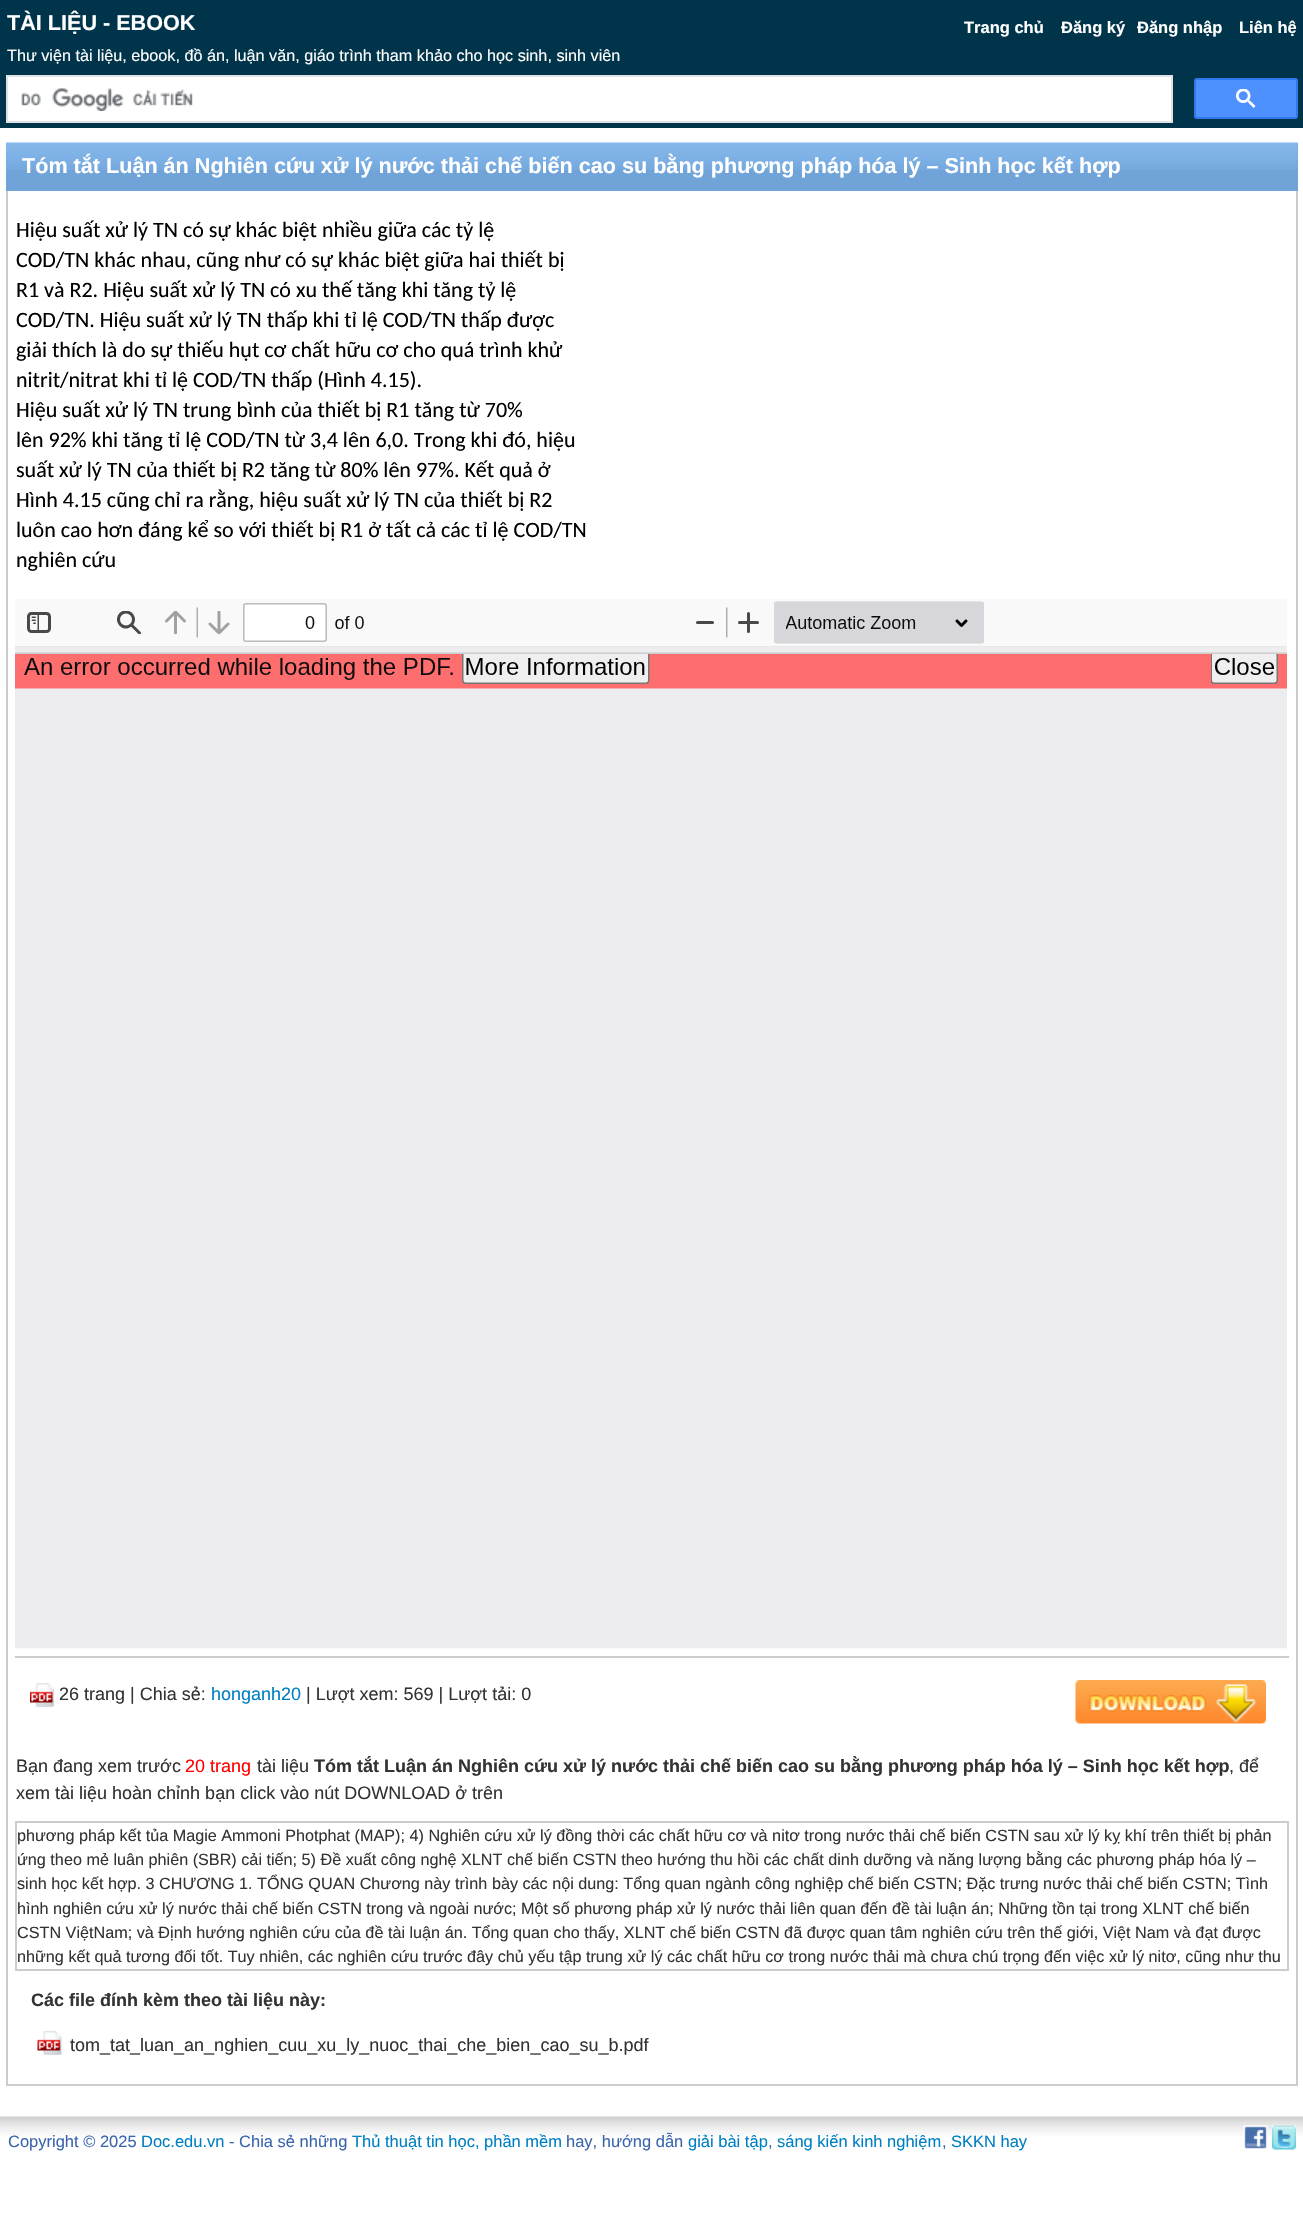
void draw(SkCanvas* canvas) {
	SkPaint paint;
	paint.setAntiAlias(true);
	canvas->clear(0xffffffff);
	paint.setColor(0xff00344a);
	canvas->drawRect(SkRect::MakeXYWH(0, 0, 1303, 128), paint);
	SkFont f1(fontMgr->matchFamilyStyle("Liberation Sans", SkFontStyle::Bold()), 21.6);
	f1.setSubpixel(true);
	paint.setColor(0xffffffff);
	canvas->drawString("TÀI LIỆU - EBOOK", 7, 30, f1, paint);
	SkFont f2(fontMgr->matchFamilyStyle("Liberation Sans", SkFontStyle::Normal()), 16.2);
	f2.setSubpixel(true);
	canvas->drawString("Thư viện tài liệu, ebook, đồ án, luận văn, giáo trình tham khảo cho học sinh, sinh viên", 7, 61, f2, paint);
	SkFont f3(fontMgr->matchFamilyStyle("Liberation Sans", SkFontStyle::Bold()), 16.5);
	f3.setSubpixel(true);
	canvas->drawString("Trang chủ", 964, 33, f3, paint);
	canvas->drawString("Đăng ký", 1061, 33, f3, paint);
	canvas->drawString("Đăng nhập", 1137, 33, f3, paint);
	canvas->drawString("Liên hệ", 1239, 33, f3, paint);
	canvas->drawRect(SkRect::MakeXYWH(7, 76, 1165, 46), paint);
	paint.setStroke(true);
	paint.setStrokeWidth(2);
	paint.setColor(0xffdfe1e5);
	canvas->drawRect(SkRect::MakeXYWH(7, 76, 1165, 46), paint);
	canvas->drawImageRect(SkImages::DeferredFromEncodedData(SkData::MakeFromFileName("img1.png")), SkRect::MakeXYWH(21, 88, 172, 23), SkSamplingOptions());
	paint.setStroke(false);
	paint.setColor(0xff4d90fe);
	canvas->drawRoundRect(SkRect::MakeXYWH(1195, 79, 102, 39), 2, 2, paint);
	paint.setStroke(true);
	paint.setColor(0xff3079ed);
	canvas->drawRoundRect(SkRect::MakeXYWH(1195, 79, 102, 39), 2, 2, paint);
	canvas->drawImageRect(SkImages::DeferredFromEncodedData(SkData::MakeFromFileName("img2.png")), SkRect::MakeXYWH(1236, 89, 20, 19), SkSamplingOptions());
	paint.setStroke(false);
	paint.setColor(0xff70a4d9);
	canvas->drawRect(SkRect::MakeXYWH(6, 143, 1292, 48), paint);
	canvas->drawImageRect(SkImages::DeferredFromEncodedData(SkData::MakeFromFileName("img3.png")), SkRect::MakeXYWH(6, 142, 1292, 28), SkSamplingOptions());
	paint.setColor(0xffffffff);
	canvas->drawString("Tóm tắt Luận án Nghiên cứu xử lý nước thải chế biến cao su bằng phương pháp hóa lý – Sinh học kết hợp", 22, 173, f1, paint);
	paint.setColor(0xffcccccc);
	canvas->drawRect(SkRect::MakeXYWH(1296, 191, 2, 1894), paint);
	canvas->drawRect(SkRect::MakeXYWH(6, 2084, 1292, 2), paint);
	canvas->drawRect(SkRect::MakeXYWH(6, 191, 2, 1894), paint);
	SkFont f4(fontMgr->matchFamilyStyle("Carlito", SkFontStyle::Normal()), 22);
	f4.setSubpixel(true);
	paint.setColor(0xff000000);
	canvas->drawString("Hiệu suất xử lý TN có sự khác biệt nhiều giữa các tỷ lệ", 16, 237, f4, paint);
	canvas->drawString("COD/TN khác nhau, cũng như có sự khác biệt giữa hai thiết bị", 16, 267, f4, paint);
	canvas->drawString("R1 và R2. Hiệu suất xử lý TN có xu thế tăng khi tăng tỷ lệ", 16, 297, f4, paint);
	canvas->drawString("COD/TN. Hiệu suất xử lý TN thấp khi tỉ lệ COD/TN thấp được", 16, 327, f4, paint);
	canvas->drawString("giải thích là do sự thiếu hụt cơ chất hữu cơ cho quá trình khử", 16, 357, f4, paint);
	canvas->drawString("nitrit/nitrat khi tỉ lệ COD/TN thấp (Hình 4.15).", 16, 387, f4, paint);
	canvas->drawString("Hiệu suất xử lý TN trung bình của thiết bị R1 tăng từ 70%", 16, 417, f4, paint);
	canvas->drawString("lên 92% khi tăng tỉ lệ COD/TN từ 3,4 lên 6,0. Trong khi đó, hiệu", 16, 447, f4, paint);
	canvas->drawString("suất xử lý TN của thiết bị R2 tăng từ 80% lên 97%. Kết quả ở", 16, 477, f4, paint);
	canvas->drawString("Hình 4.15 cũng chỉ ra rằng, hiệu suất xử lý TN của thiết bị R2", 16, 507, f4, paint);
	canvas->drawString("luôn cao hơn đáng kể so với thiết bị R1 ở tất cả các tỉ lệ COD/TN", 16, 537, f4, paint);
	canvas->drawString("nghiên cứu", 16, 567, f4, paint);
	paint.setColor(0xffcccccc);
	canvas->drawRect(SkRect::MakeXYWH(15, 1656, 1274, 2), paint);
	canvas->drawImageRect(SkImages::DeferredFromEncodedData(SkData::MakeFromFileName("img4.png")), SkRect::MakeXYWH(15, 599, 1272, 1050), SkSamplingOptions());
	canvas->drawImageRect(SkImages::DeferredFromEncodedData(SkData::MakeFromFileName("img5.png")), SkRect::MakeXYWH(30, 1683, 24, 24), SkSamplingOptions());
	SkFont f5(fontMgr->matchFamilyStyle("Liberation Sans", SkFontStyle::Normal()), 18);
	f5.setSubpixel(true);
	paint.setColor(0xff333333);
	canvas->drawString("26 trang | Chia sẻ:", 59, 1700, f5, paint);
	paint.setColor(0xff007fc2);
	canvas->drawString("honganh20", 211, 1700, f5, paint);
	paint.setColor(0xff333333);
	canvas->drawString("| Lượt xem: 569 | Lượt tải: 0", 306, 1700, f5, paint);
	canvas->drawImageRect(SkImages::DeferredFromEncodedData(SkData::MakeFromFileName("img6.png")), SkRect::MakeXYWH(1075, 1680, 191, 44), SkSamplingOptions());
	canvas->drawString("Bạn đang xem trước", 16, 1772, f5, paint);
	paint.setColor(0xffff0000);
	canvas->drawString("20 trang", 185, 1772, f5, paint);
	paint.setColor(0xff333333);
	canvas->drawString("tài liệu", 257, 1772, f5, paint);
	SkFont f6(fontMgr->matchFamilyStyle("Liberation Sans", SkFontStyle::Bold()), 18);
	f6.setSubpixel(true);
	canvas->drawString("Tóm tắt Luận án Nghiên cứu xử lý nước thải chế biến cao su bằng phương pháp hóa lý – Sinh học kết hợp", 314, 1772, f6, paint);
	canvas->drawString(", để", 1229, 1772, f5, paint);
	canvas->drawString("xem tài liệu hoàn chỉnh bạn click vào nút DOWNLOAD ở trên", 16, 1799, f5, paint);
	paint.setStroke(true);
	paint.setColor(0xffcccccc);
	canvas->drawRect(SkRect::MakeXYWH(16, 1822, 1272, 148), paint);
	paint.setStroke(false);
	paint.setColor(0xff333333);
	canvas->drawString("phương pháp kết tủa Magie Ammoni Photphat (MAP); 4) Nghiên cứu xử lý đồng thời các chất hữu cơ và nitơ trong nước thải chế biến CSTN sau xử lý kỵ khí trên thiết bị phản", 17, 1841, f2, paint);
	canvas->drawString("ứng theo mẻ luân phiên (SBR) cải tiến; 5) Đề xuất công nghệ XLNT chế biến CSTN theo hướng thu hồi các chất dinh dưỡng và năng lượng bằng các phương pháp hóa lý –", 17, 1865, f2, paint);
	canvas->drawString("sinh học kết hợp. 3 CHƯƠNG 1. TỔNG QUAN Chương này trình bày các nội dung: Tổng quan ngành công nghiệp chế biến CSTN; Đặc trưng nước thải chế biến CSTN; Tình", 17, 1889, f2, paint);
	canvas->drawString("hình nghiên cứu xử lý nước thải chế biến CSTN trong và ngoài nước; Một số phương pháp xử lý nước thải liên quan đến đề tài luận án; Những tồn tại trong XLNT chế biến", 17, 1914, f2, paint);
	canvas->drawString("CSTN ViệtNam; và Định hướng nghiên cứu của đề tài luận án. Tổng quan cho thấy, XLNT chế biến CSTN đã được quan tâm nghiên cứu trên thế giới, Việt Nam và đạt được", 17, 1938, f2, paint);
	canvas->drawString("những kết quả tương đối tốt. Tuy nhiên, các nghiên cứu trước đây chủ yếu tập trung xử lý các chất hữu cơ trong nước thải mà chưa chú trọng đến việc xử lý nitơ, cũng như thu", 17, 1962, f2, paint);
	canvas->drawString("Các file đính kèm theo tài liệu này:", 31, 2006, f6, paint);
	canvas->drawImageRect(SkImages::DeferredFromEncodedData(SkData::MakeFromFileName("img7.png")), SkRect::MakeXYWH(37, 2031, 25, 24), SkSamplingOptions());
	canvas->drawString("tom_tat_luan_an_nghien_cuu_xu_ly_nuoc_thai_che_bien_cao_su_b.pdf", 70, 2051, f5, paint);
	canvas->drawImageRect(SkImages::DeferredFromEncodedData(SkData::MakeFromFileName("img8.png")), SkRect::MakeXYWH(0, 2116, 1303, 20), SkSamplingOptions());
	SkFont f7(fontMgr->matchFamilyStyle("Liberation Sans", SkFontStyle::Normal()), 16.5);
	f7.setSubpixel(true);
	paint.setColor(0xff3a65ae);
	canvas->drawString("Copyright © 2025", 8, 2147, f7, paint);
	paint.setColor(0xff007fc2);
	canvas->drawString("Doc.edu.vn", 141, 2147, f7, paint);
	paint.setColor(0xff3a65ae);
	canvas->drawString("- Chia sẻ những", 229, 2147, f7, paint);
	paint.setColor(0xff007fc2);
	canvas->drawString("Thủ thuật tin học, phần mềm", 352, 2147, f7, paint);
	paint.setColor(0xff3a65ae);
	canvas->drawString("hay, hướng dẫn", 566, 2147, f7, paint);
	paint.setColor(0xff007fc2);
	canvas->drawString("giải bài tập", 688, 2147, f7, paint);
	paint.setColor(0xff3a65ae);
	canvas->drawString(",", 768, 2147, f7, paint);
	paint.setColor(0xff007fc2);
	canvas->drawString("sáng kiến kinh nghiệm", 777, 2147, f7, paint);
	paint.setColor(0xff3a65ae);
	canvas->drawString(",", 942, 2147, f7, paint);
	paint.setColor(0xff007fc2);
	canvas->drawString("SKKN hay", 951, 2147, f7, paint);
	canvas->drawImageRect(SkImages::DeferredFromEncodedData(SkData::MakeFromFileName("img9.png")), SkRect::MakeXYWH(1243, 2125, 25, 24), SkSamplingOptions());
	canvas->drawImageRect(SkImages::DeferredFromEncodedData(SkData::MakeFromFileName("img10.png")), SkRect::MakeXYWH(1272, 2125, 24, 25), SkSamplingOptions());
}
